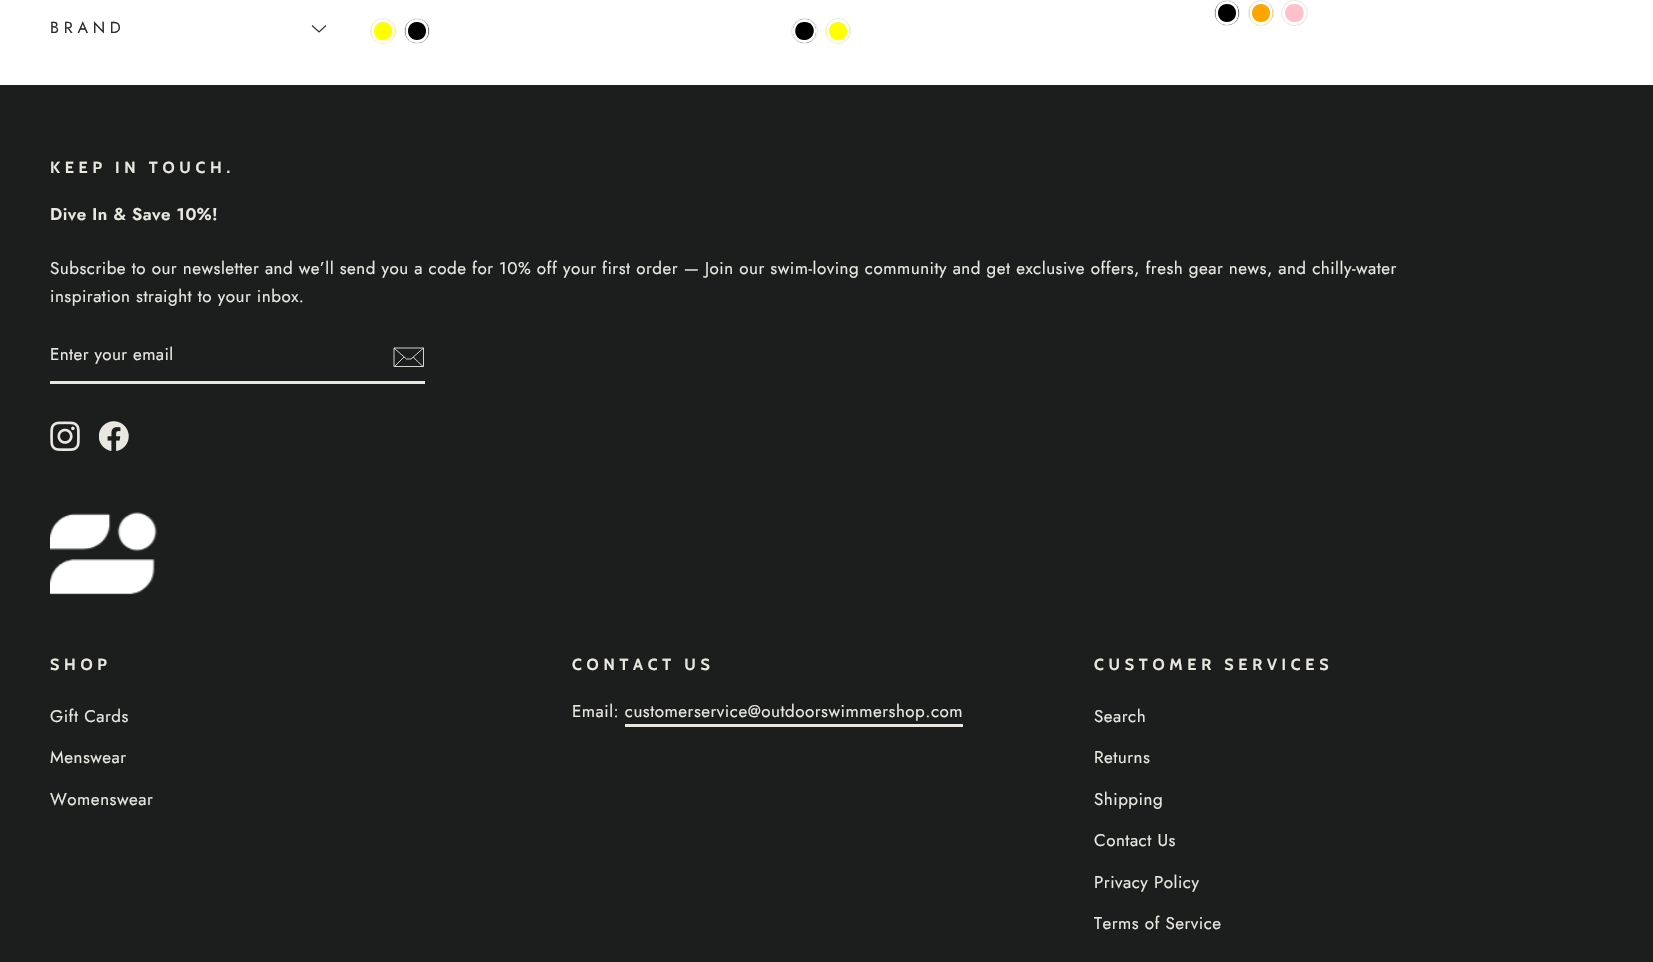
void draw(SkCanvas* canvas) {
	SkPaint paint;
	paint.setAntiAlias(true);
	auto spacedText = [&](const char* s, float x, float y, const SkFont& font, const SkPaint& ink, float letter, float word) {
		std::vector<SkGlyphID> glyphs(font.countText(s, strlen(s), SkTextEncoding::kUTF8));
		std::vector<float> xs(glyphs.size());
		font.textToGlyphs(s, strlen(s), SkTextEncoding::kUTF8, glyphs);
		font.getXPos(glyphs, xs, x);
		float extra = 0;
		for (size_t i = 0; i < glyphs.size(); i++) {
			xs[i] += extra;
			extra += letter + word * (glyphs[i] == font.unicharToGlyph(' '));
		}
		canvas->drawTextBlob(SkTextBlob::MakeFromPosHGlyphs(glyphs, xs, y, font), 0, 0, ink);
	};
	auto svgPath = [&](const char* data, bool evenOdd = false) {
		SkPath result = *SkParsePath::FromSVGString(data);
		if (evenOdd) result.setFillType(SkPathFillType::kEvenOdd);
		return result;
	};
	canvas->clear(0xffffffff);
	SkFont f1(fontMgr->matchFamilyStyle("Jost", SkFontStyle::Normal()), 16);
	f1.setSubpixel(true);
	paint.setColor(0xff2c2c2c);
	spacedText("BRAND", 50, 33, f1, paint, 4.75, 0);
	paint.setStroke(true);
	paint.setStrokeWidth(1.1);
	canvas->drawPath(svgPath("M312 25.5L319 32L326 25.5"), paint);
	paint.setStrokeWidth(1);
	paint.setColor(0xffe8e8e1);
	canvas->drawCircle(1227, 13, 12.5, paint);
	paint.setStroke(false);
	paint.setColor(0xff000000);
	canvas->drawCircle(1227, 13, 12, paint);
	paint.setStroke(true);
	paint.setColor(0xffe8e8e1);
	canvas->drawCircle(1261, 13, 12.5, paint);
	paint.setStroke(false);
	paint.setColor(0xffffa500);
	canvas->drawCircle(1261, 13, 12, paint);
	paint.setColor(0xffffffff);
	canvas->drawPath(svgPath("M1227 1C1211.5 1 1211.5 25 1227 25C1242.5 25 1242.5 1 1227 1ZM1227 4C1215 4 1215 22 1227 22C1239 22 1239 4 1227 4ZM1261 1C1245.5 1 1245.5 25 1261 25C1276.5 25 1276.5 1 1261 1ZM1261 4C1249 4 1249 22 1261 22C1273 22 1273 4 1261 4Z", true), paint);
	paint.setStroke(true);
	paint.setColor(0xffe8e8e1);
	canvas->drawRoundRect(SkRect::MakeXYWH(1281.5, 0.5, 26, 25), 12.5, 12.5, paint);
	paint.setStroke(false);
	paint.setColor(0xffffc0cb);
	canvas->drawRoundRect(SkRect::MakeXYWH(1283, 1, 23, 24), 11.5, 11.5, paint);
	paint.setColor(0xffffffff);
	canvas->drawPath(svgPath("M1294.5 1C1279 1 1279 25 1294.5 25C1310 25 1310 1 1294.5 1ZM1294 4C1282.5 4 1282 21 1294 22C1306.5 23 1307 4 1295 4Z", true), paint);
	paint.setStroke(true);
	paint.setColor(0xffe8e8e1);
	canvas->drawCircle(383, 31, 12.5, paint);
	paint.setStroke(false);
	paint.setColor(0xffffff00);
	canvas->drawCircle(383, 31, 12, paint);
	paint.setStroke(true);
	paint.setColor(0xffe8e8e1);
	canvas->drawCircle(417, 31, 12.5, paint);
	paint.setStroke(false);
	paint.setColor(0xff000000);
	canvas->drawCircle(417, 31, 12, paint);
	paint.setColor(0xffffffff);
	canvas->drawPath(svgPath("M383 19C367.5 19 367.5 43 383 43C398.5 43 398.5 19 383 19ZM383 22C371 22 371 40 383 40C395 40 395 22 383 22ZM417 19C401.5 19 401.5 43 417 43C432.5 43 432.5 19 417 19ZM417 22C405 22 405 40 417 40C429 40 429 22 417 22Z", true), paint);
	paint.setStroke(true);
	paint.setColor(0xffe8e8e1);
	canvas->drawRoundRect(SkRect::MakeXYWH(791.5, 18.5, 26, 25), 12.5, 12.5, paint);
	paint.setStroke(false);
	paint.setColor(0xff000000);
	canvas->drawRoundRect(SkRect::MakeXYWH(793, 19, 23, 24), 11.5, 11.5, paint);
	paint.setStroke(true);
	paint.setColor(0xffe8e8e1);
	canvas->drawCircle(838, 31, 12.5, paint);
	paint.setStroke(false);
	paint.setColor(0xffffff00);
	canvas->drawCircle(838, 31, 12, paint);
	paint.setColor(0xffffffff);
	canvas->drawPath(svgPath("M804.5 19C789 19 789 43 804.5 43C820 43 820 19 804.5 19ZM804 22C792 22 792.5 41 805 40C817 39 816.5 22 805 22ZM838 19C822.5 19 822.5 43 838 43C853.5 43 853.5 19 838 19ZM838 22C826 22 826 40 838 40C850 40 850 22 838 22Z", true), paint);
	paint.setColor(0xff1c1d1d);
	canvas->drawRect(SkRect::MakeXYWH(0, 85, 1653, 877), paint);
	SkFont f2(fontMgr->matchFamilyStyle("Cabin", SkFontStyle::Bold()), 16);
	f2.setSubpixel(true);
	paint.setColor(0xffe8e8e1);
	spacedText("KEEP IN TOUCH.", 50, 173, f2, paint, 4.75, 0);
	SkFont f3(fontMgr->matchFamilyStyle("Jost", SkFontStyle(600, SkFontStyle::kNormal_Width, SkFontStyle::kUpright_Slant)), 17);
	f3.setSubpixel(true);
	spacedText("Dive In & Save 10%!", 50, 220, f3, paint, 0.5, 0);
	SkFont f4(fontMgr->matchFamilyStyle("Jost", SkFontStyle::Normal()), 17);
	f4.setSubpixel(true);
	spacedText("Subscribe to our newsletter and we’ll send you a code for 10% off your first order — Join our swim-loving community and get exclusive offers, fresh gear news, and chilly-water", 50, 274, f4, paint, 0.5, 0);
	spacedText("inspiration straight to your inbox.", 50, 302, f4, paint, 0.5, 0);
	canvas->drawRect(SkRect::MakeXYWH(50, 381, 375, 3), paint);
	spacedText("Enter your email", 50, 360, f4, paint, 0.4, 0);
	paint.setStroke(true);
	paint.setStrokeWidth(0.9);
	canvas->drawPath(svgPath("M423.5 366.5H394V348H423.5ZM394 348L406.5 359H411L423.5 348M404 357L394.5 366.5M423 366.5L413 357"), paint);
	canvas->drawImageRect(SkImages::DeferredFromEncodedData(SkData::MakeFromFileName("img1.png")), SkRect::MakeXYWH(50, 421, 30, 30), SkSamplingOptions());
	canvas->drawImageRect(SkImages::DeferredFromEncodedData(SkData::MakeFromFileName("img2.png")), SkRect::MakeXYWH(99, 421, 30, 30), SkSamplingOptions());
	canvas->drawImageRect(SkImages::DeferredFromEncodedData(SkData::MakeFromFileName("img3.png")), SkRect::MakeXYWH(50, 512, 108, 83), SkSamplingOptions());
	paint.setStroke(false);
	spacedText("SHOP", 50, 670, f2, paint, 4.75, 0);
	spacedText("Gift Cards", 50, 722, f4, paint, 0.5, 0);
	spacedText("Menswear", 50, 763, f4, paint, 0.5, 0);
	spacedText("Womenswear", 50, 805, f4, paint, 0.5, 0);
	spacedText("CONTACT US", 572, 670, f2, paint, 4.75, 0);
	spacedText("Email: customerservice@outdoorswimmershop.com", 572, 717, f4, paint, 0.5, 0);
	canvas->drawRect(SkRect::MakeXYWH(625, 724, 338, 3), paint);
	spacedText("CUSTOMER SERVICES", 1094, 670, f2, paint, 4.75, 0);
	spacedText("Search", 1094, 722, f4, paint, 0.5, 0);
	spacedText("Returns", 1094, 763, f4, paint, 0.5, 0);
	spacedText("Shipping", 1094, 805, f4, paint, 0.5, 0);
	spacedText("Contact Us", 1094, 846, f4, paint, 0.5, 0);
	spacedText("Privacy Policy", 1094, 888, f4, paint, 0.5, 0);
	spacedText("Terms of Service", 1094, 929, f4, paint, 0.5, 0);
}
